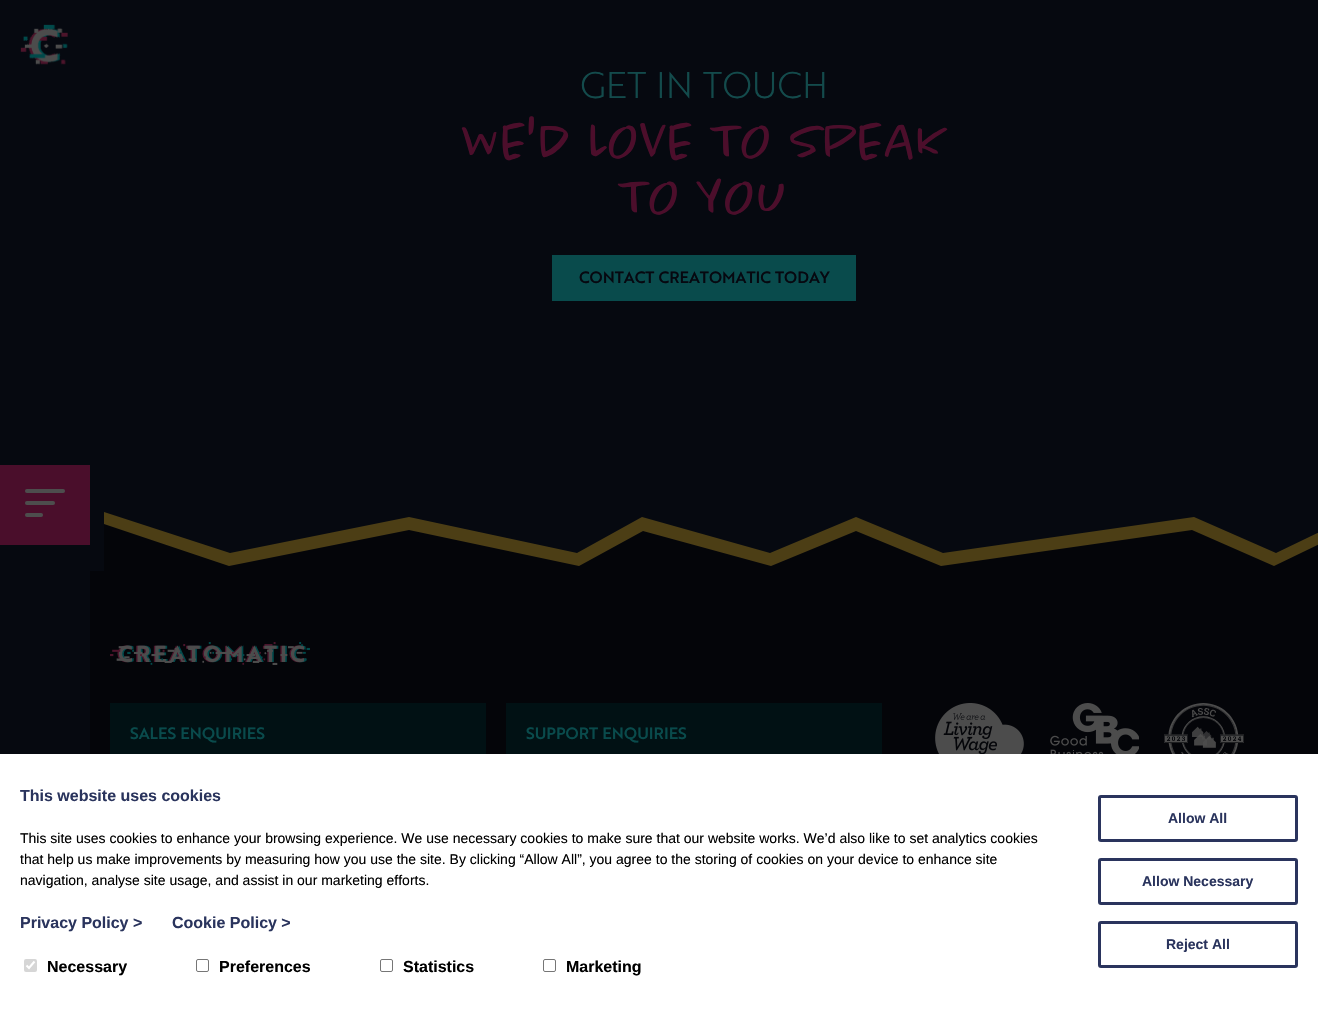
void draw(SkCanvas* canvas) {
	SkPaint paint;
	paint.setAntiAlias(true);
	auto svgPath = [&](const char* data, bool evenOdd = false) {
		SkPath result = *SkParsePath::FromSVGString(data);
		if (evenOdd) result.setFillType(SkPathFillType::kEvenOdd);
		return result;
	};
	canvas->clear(0xff060910);
	canvas->drawImageRect(SkImages::DeferredFromEncodedData(SkData::MakeFromFileName("img1.png")), SkRect::MakeXYWH(20, 24, 48, 41), SkSamplingOptions());
	paint.setColor(0xff4a0e2b);
	canvas->drawRect(SkRect::MakeXYWH(0, 465, 90, 80), paint);
	paint.setColor(0xff4d4d4d);
	canvas->drawRoundRect(SkRect::MakeXYWH(25, 489, 40, 4), 2, 2, paint);
	canvas->drawRoundRect(SkRect::MakeXYWH(25, 501, 30, 4), 2, 2, paint);
	canvas->drawRoundRect(SkRect::MakeXYWH(25, 513, 18, 4), 2, 2, paint);
	SkFont f1(fontMgr->matchFamilyStyle("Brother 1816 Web", SkFontStyle(300, SkFontStyle::kNormal_Width, SkFontStyle::kUpright_Slant)), 36);
	f1.setSubpixel(true);
	paint.setColor(0xff134b4c);
	canvas->drawString("GET IN TOUCH", 580, 98, f1, paint);
	SkFont f2(fontMgr->matchFamilyStyle("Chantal", SkFontStyle(300, SkFontStyle::kNormal_Width, SkFontStyle::kUpright_Slant)), 56);
	f2.setSubpixel(true);
	paint.setColor(0xff4c0e2b);
	canvas->drawString("WE'D LOVE TO SPEAK", 462, 161, f2, paint);
	canvas->drawString("TO YOU", 619, 217, f2, paint);
	paint.setColor(0xff094b4c);
	canvas->drawRect(SkRect::MakeXYWH(552, 255, 304, 46), paint);
	SkFont f3(fontMgr->matchFamilyStyle("Brother 1816 Web", SkFontStyle(500, SkFontStyle::kNormal_Width, SkFontStyle::kUpright_Slant)), 16);
	f3.setSubpixel(true);
	paint.setColor(0xff060810);
	canvas->drawString("CONTACT CREATOMATIC TODAY", 579, 283, f3, paint);
	paint.setColor(0xff040509);
	canvas->drawRect(SkRect::MakeXYWH(90, 571, 1228, 183), paint);
	canvas->drawPath(svgPath("M104 572V518L228 558L408 525L575 559L643 524L770 558L855 524L942 558L1194 525L1274 559L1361 512V572Z"), paint);
	paint.setColor(0xff4c3e15);
	canvas->drawPath(svgPath("M771 566L643 531L579 566L409 530L229 566L104 524V512L230 553L409 517L577 553L642 517L770 553L856 517L943 553L1194 517L1276 553L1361 512V524L1274 566L1192 530L941 566L856 531Z"), paint);
	canvas->drawImageRect(SkImages::DeferredFromEncodedData(SkData::MakeFromFileName("img2.png")), SkRect::MakeXYWH(110, 642, 200, 23), SkSamplingOptions());
	paint.setColor(0xff011114);
	canvas->drawRect(SkRect::MakeXYWH(110, 703, 376, 51), paint);
	paint.setColor(0xff094b4c);
	canvas->drawString("SALES ENQUIRIES", 130, 739, f3, paint);
	paint.setColor(0xff011114);
	canvas->drawRect(SkRect::MakeXYWH(506, 703, 376, 51), paint);
	paint.setColor(0xff094b4c);
	canvas->drawString("SUPPORT ENQUIRIES", 526, 739, f3, paint);
	canvas->drawImageRect(SkImages::DeferredFromEncodedData(SkData::MakeFromFileName("img3.png")), SkRect::MakeXYWH(935, 703, 89, 51), SkSamplingOptions());
	canvas->drawImageRect(SkImages::DeferredFromEncodedData(SkData::MakeFromFileName("img4.png")), SkRect::MakeXYWH(1050, 703, 89, 51), SkSamplingOptions());
	canvas->drawImageRect(SkImages::DeferredFromEncodedData(SkData::MakeFromFileName("img5.png")), SkRect::MakeXYWH(1164, 703, 80, 51), SkSamplingOptions());
	paint.setColor(0xffffffff);
	canvas->drawRect(SkRect::MakeXYWH(0, 754, 1318, 255), paint);
	SkFont f4(fontMgr->matchFamilyStyle("Liberation Sans", SkFontStyle::Bold()), 16);
	f4.setSubpixel(true);
	paint.setColor(0xff2a345d);
	canvas->drawString("This website uses cookies", 20, 801, f4, paint);
	SkFont f5(fontMgr->matchFamilyStyle("Liberation Sans", SkFontStyle::Normal()), 14);
	f5.setSubpixel(true);
	paint.setColor(0xff000000);
	canvas->drawString("This site uses cookies to enhance your browsing experience. We use necessary cookies to make sure that our website works. We’d also like to set analytics cookies", 20, 843, f5, paint);
	canvas->drawString("that help us make improvements by measuring how you use the site. By clicking “Allow All”, you agree to the storing of cookies on your device to enhance site", 20, 864, f5, paint);
	canvas->drawString("navigation, analyse site usage, and assist in our marketing efforts.", 20, 885, f5, paint);
	paint.setColor(0xff2a345d);
	canvas->drawString("Privacy Policy >", 20, 928, f4, paint);
	canvas->drawString("Cookie Policy >", 172, 928, f4, paint);
	paint.setColor(0xffd6d6d6);
	canvas->drawRoundRect(SkRect::MakeXYWH(24, 959, 13, 13), 2, 2, paint);
	paint.setStroke(true);
	paint.setStrokeWidth(2.1);
	paint.setColor(0xffffffff);
	canvas->drawPath(svgPath("M26.5 965.5L29 968L34.5 961.5"), paint);
	paint.setStroke(false);
	paint.setColor(0xff000000);
	canvas->drawString("Necessary", 47, 972, f4, paint);
	paint.setStroke(true);
	paint.setStrokeWidth(1);
	paint.setColor(0xff767676);
	canvas->drawRoundRect(SkRect::MakeXYWH(196.5, 959.5, 12, 12), 1.5, 1.5, paint);
	paint.setStroke(false);
	paint.setColor(0xff000000);
	canvas->drawString("Preferences", 219, 972, f4, paint);
	paint.setStroke(true);
	paint.setColor(0xff767676);
	canvas->drawRoundRect(SkRect::MakeXYWH(380.5, 959.5, 12, 12), 1.5, 1.5, paint);
	paint.setStroke(false);
	paint.setColor(0xff000000);
	canvas->drawString("Statistics", 403, 972, f4, paint);
	paint.setStroke(true);
	paint.setColor(0xff767676);
	canvas->drawRoundRect(SkRect::MakeXYWH(543.5, 959.5, 12, 12), 1.5, 1.5, paint);
	paint.setStroke(false);
	paint.setColor(0xff000000);
	canvas->drawString("Marketing", 566, 972, f4, paint);
	paint.setStroke(true);
	paint.setStrokeWidth(3);
	paint.setColor(0xff2a345d);
	canvas->drawRoundRect(SkRect::MakeXYWH(1099.5, 796.5, 197, 44), 1.5, 1.5, paint);
	SkFont f6(fontMgr->matchFamilyStyle("Liberation Sans", SkFontStyle::Bold()), 14);
	f6.setSubpixel(true);
	paint.setStroke(false);
	canvas->drawString("Allow All", 1168, 823, f6, paint);
	paint.setStroke(true);
	canvas->drawRoundRect(SkRect::MakeXYWH(1099.5, 859.5, 197, 44), 1.5, 1.5, paint);
	paint.setStroke(false);
	canvas->drawString("Allow Necessary", 1142, 886, f6, paint);
	paint.setStroke(true);
	canvas->drawRoundRect(SkRect::MakeXYWH(1099.5, 922.5, 197, 44), 1.5, 1.5, paint);
	paint.setStroke(false);
	canvas->drawString("Reject All", 1166, 949, f6, paint);
}
